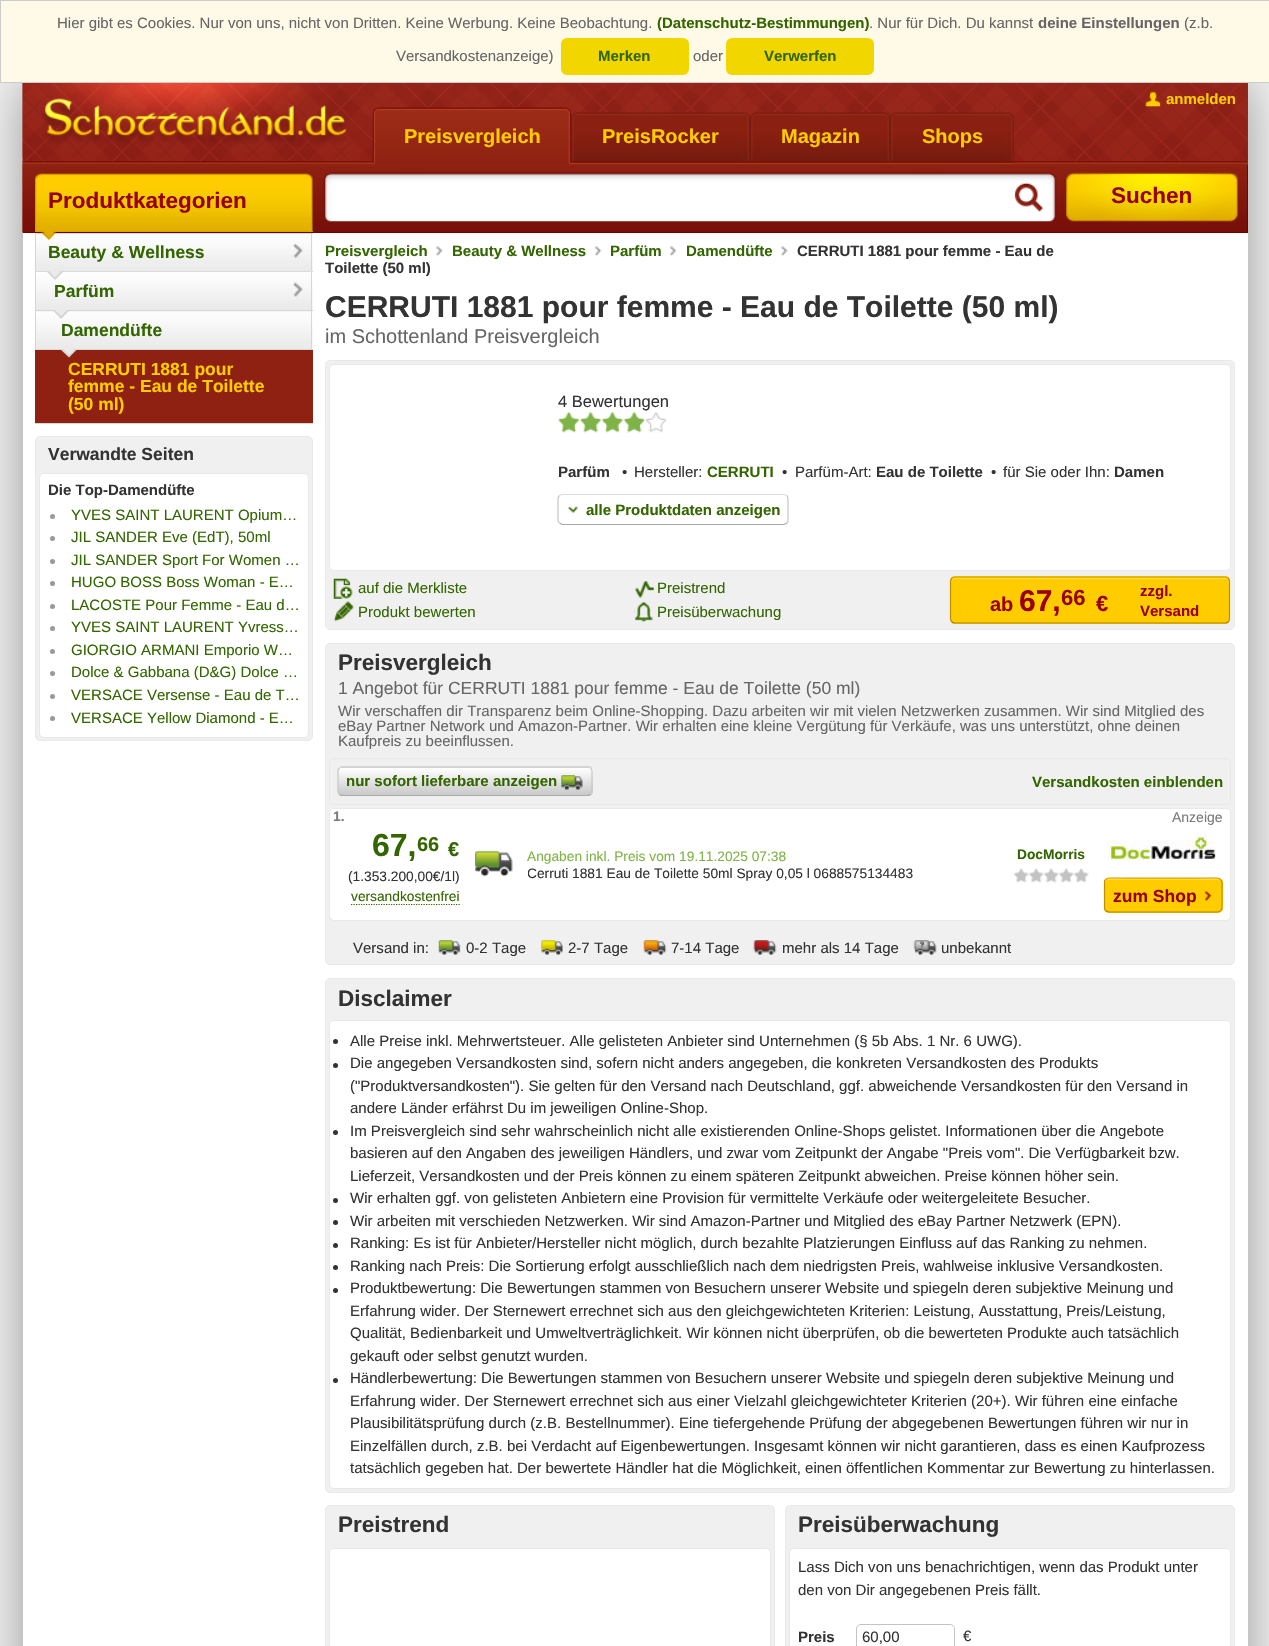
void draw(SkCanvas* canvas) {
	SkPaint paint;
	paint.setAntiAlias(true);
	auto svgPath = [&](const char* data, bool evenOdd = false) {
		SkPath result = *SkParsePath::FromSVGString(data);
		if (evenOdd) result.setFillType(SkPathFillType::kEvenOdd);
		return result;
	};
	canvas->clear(0xfff0f0f0);
	paint.setColor(0xff999999);
	paint.setMaskFilter(SkMaskFilter::MakeBlur(kNormal_SkBlurStyle, 23));
	canvas->drawRect(SkRect::MakeXYWH(23, 83, 1225, 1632), paint);
	paint.setMaskFilter(nullptr);
	paint.setColor(0xfffffae7);
	canvas->drawRect(SkRect::MakeXYWH(0.5, 0.5, 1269, 82), paint);
	paint.setStroke(true);
	paint.setStrokeWidth(1);
	paint.setColor(0xffcccccc);
	canvas->drawRect(SkRect::MakeXYWH(0.5, 0.5, 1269, 82), paint);
	SkFont f1(fontMgr->matchFamilyStyle("Liberation Sans", SkFontStyle::Normal()), 15);
	f1.setSubpixel(true);
	paint.setStroke(false);
	paint.setColor(0xff666666);
	canvas->drawString("Hier gibt es Cookies. Nur von uns, nicht von Dritten. Keine Werbung. Keine Beobachtung.", 57, 28, f1, paint);
	SkFont f2(fontMgr->matchFamilyStyle("Liberation Sans", SkFontStyle::Bold()), 15);
	f2.setSubpixel(true);
	paint.setColor(0xff336600);
	canvas->drawString("(Datenschutz-Bestimmungen)", 657, 28, f2, paint);
	paint.setColor(0xff666666);
	canvas->drawString(". Nur für Dich. Du kannst", 869, 28, f1, paint);
	canvas->drawString("deine Einstellungen", 1038, 28, f2, paint);
	canvas->drawString("(z.b.", 1184, 28, f1, paint);
	canvas->drawString("Versandkostenanzeige)", 396, 61, f1, paint);
	paint.setColor(0xfff1d600);
	canvas->drawRoundRect(SkRect::MakeXYWH(561, 38, 128, 37), 6, 6, paint);
	paint.setColor(0xff336600);
	canvas->drawString("Merken", 598, 61, f2, paint);
	paint.setColor(0xff666666);
	canvas->drawString("oder", 693, 61, f1, paint);
	paint.setColor(0xfff1d600);
	canvas->drawRoundRect(SkRect::MakeXYWH(726, 38, 148, 37), 6, 6, paint);
	paint.setColor(0xff336600);
	canvas->drawString("Verwerfen", 764, 61, f2, paint);
	paint.setColor(0xffffffff);
	canvas->drawRect(SkRect::MakeXYWH(23, 233, 1225, 1413), paint);
	paint.setColor(0xff98261a);
	canvas->drawRect(SkRect::MakeXYWH(1247, 83, 1, 82), paint);
	canvas->drawImageRect(SkImages::DeferredFromEncodedData(SkData::MakeFromFileName("img1.png")), SkRect::MakeXYWH(22, 83, 1226, 150), SkSamplingOptions());
	canvas->drawImageRect(SkImages::DeferredFromEncodedData(SkData::MakeFromFileName("img4.png")), SkRect::MakeXYWH(22, 161, 1226, 72), SkSamplingOptions());
	canvas->drawImageRect(SkImages::DeferredFromEncodedData(SkData::MakeFromFileName("img5.png")), SkRect::MakeXYWH(563, 107, 9, 58), SkSamplingOptions());
	canvas->drawImageRect(SkImages::DeferredFromEncodedData(SkData::MakeFromFileName("img6.png")), SkRect::MakeXYWH(372, 107, 192, 57), SkSamplingOptions());
	canvas->drawImageRect(SkImages::DeferredFromEncodedData(SkData::MakeFromFileName("img2.png")), SkRect::MakeXYWH(22, 83, 351, 75), SkSamplingOptions());
	canvas->drawImageRect(SkImages::DeferredFromEncodedData(SkData::MakeFromFileName("img3.png")), SkRect::MakeXYWH(1145, 91, 16, 16), SkSamplingOptions());
	paint.setColor(0xffffcc00);
	canvas->drawString("anmelden", 1166, 104, f2, paint);
	SkFont f3(fontMgr->matchFamilyStyle("Liberation Sans", SkFontStyle::Bold()), 20);
	f3.setSubpixel(true);
	canvas->drawString("Preisvergleich", 404, 143, f3, paint);
	canvas->drawImageRect(SkImages::DeferredFromEncodedData(SkData::MakeFromFileName("img7.png")), SkRect::MakeXYWH(742, 112, 8, 53), SkSamplingOptions());
	canvas->drawImageRect(SkImages::DeferredFromEncodedData(SkData::MakeFromFileName("img8.png")), SkRect::MakeXYWH(571, 112, 172, 53), SkSamplingOptions());
	canvas->drawString("PreisRocker", 602, 143, f3, paint);
	canvas->drawImageRect(SkImages::DeferredFromEncodedData(SkData::MakeFromFileName("img9.png")), SkRect::MakeXYWH(882, 112, 8, 53), SkSamplingOptions());
	canvas->drawImageRect(SkImages::DeferredFromEncodedData(SkData::MakeFromFileName("img10.png")), SkRect::MakeXYWH(750, 112, 134, 53), SkSamplingOptions());
	canvas->drawString("Magazin", 781, 143, f3, paint);
	canvas->drawImageRect(SkImages::DeferredFromEncodedData(SkData::MakeFromFileName("img11.png")), SkRect::MakeXYWH(1006, 112, 8, 53), SkSamplingOptions());
	canvas->drawImageRect(SkImages::DeferredFromEncodedData(SkData::MakeFromFileName("img12.png")), SkRect::MakeXYWH(890, 112, 116, 53), SkSamplingOptions());
	canvas->drawString("Shops", 922, 143, f3, paint);
	paint.setColor(0xff670101);
	canvas->drawRect(SkRect::MakeXYWH(23, 165, 1225, 68), paint);
	canvas->drawImageRect(SkImages::DeferredFromEncodedData(SkData::MakeFromFileName("img13.png")), SkRect::MakeXYWH(22, 165, 1226, 68), SkSamplingOptions());
	canvas->drawImageRect(SkImages::DeferredFromEncodedData(SkData::MakeFromFileName("img14.png")), SkRect::MakeXYWH(323, 172, 734, 50), SkSamplingOptions());
	canvas->drawImageRect(SkImages::DeferredFromEncodedData(SkData::MakeFromFileName("img15.png")), SkRect::MakeXYWH(1066, 172, 172, 50), SkSamplingOptions());
	SkFont f4(fontMgr->matchFamilyStyle("Liberation Sans", SkFontStyle::Bold()), 22.5);
	f4.setSubpixel(true);
	paint.setColor(0xff990000);
	canvas->drawString("Suchen", 1111, 203, f4, paint);
	paint.setColor(0xffd6d6d6);
	canvas->drawRect(SkRect::MakeXYWH(35, 423, 278, 1), paint);
	paint.setColor(0xffd49f00);
	canvas->drawRect(SkRect::MakeXYWH(35, 231, 278, 1), paint);
	canvas->drawImageRect(SkImages::DeferredFromEncodedData(SkData::MakeFromFileName("img16.png")), SkRect::MakeXYWH(35, 173, 278, 59), SkSamplingOptions());
	paint.setColor(0xff990000);
	canvas->drawString("Produktkategorien", 48, 208, f4, paint);
	paint.setColor(0xffd6d6d6);
	canvas->drawRect(SkRect::MakeXYWH(35, 271, 278, 1), paint);
	canvas->drawImageRect(SkImages::DeferredFromEncodedData(SkData::MakeFromFileName("img19.png")), SkRect::MakeXYWH(36, 273, 277, 37), SkSamplingOptions());
	canvas->drawRect(SkRect::MakeXYWH(311, 271, 1, 39), paint);
	canvas->drawRect(SkRect::MakeXYWH(35, 271, 1, 39), paint);
	canvas->drawImageRect(SkImages::DeferredFromEncodedData(SkData::MakeFromFileName("img17.png")), SkRect::MakeXYWH(35, 234, 278, 38), SkSamplingOptions());
	canvas->drawRect(SkRect::MakeXYWH(35, 233, 278, 1), paint);
	paint.setColor(0xffd49f00);
	canvas->drawPath(svgPath("M41 232.5H56L49 240Z"), paint);
	paint.setColor(0xffe1ae00);
	canvas->drawPath(svgPath("M42.5 231H55L49 237.5Z"), paint);
	paint.setColor(0xffd6d6d6);
	canvas->drawRect(SkRect::MakeXYWH(311, 233, 1, 38), paint);
	canvas->drawRect(SkRect::MakeXYWH(35, 233, 1, 38), paint);
	SkFont f5(fontMgr->matchFamilyStyle("Liberation Sans", SkFontStyle::Bold()), 17.5);
	f5.setSubpixel(true);
	paint.setColor(0xff336600);
	canvas->drawString("Beauty & Wellness", 48, 258, f5, paint);
	canvas->drawImageRect(SkImages::DeferredFromEncodedData(SkData::MakeFromFileName("img18.png")), SkRect::MakeXYWH(293, 243, 10, 15), SkSamplingOptions());
	paint.setColor(0xffd6d6d6);
	canvas->drawPath(svgPath("M46 271H64L55 280Z"), paint);
	paint.setColor(0xffeaeaea);
	canvas->drawPath(svgPath("M49 271H61L55 277.5Z"), paint);
	paint.setColor(0xff336600);
	canvas->drawString("Parfüm", 54, 297, f5, paint);
	canvas->drawImageRect(SkImages::DeferredFromEncodedData(SkData::MakeFromFileName("img20.png")), SkRect::MakeXYWH(293, 282, 10, 15), SkSamplingOptions());
	paint.setColor(0xffe9e9e9);
	canvas->drawRect(SkRect::MakeXYWH(36, 311, 275, 38), paint);
	canvas->drawImageRect(SkImages::DeferredFromEncodedData(SkData::MakeFromFileName("img21.png")), SkRect::MakeXYWH(36, 311, 277, 38), SkSamplingOptions());
	paint.setColor(0xffd6d6d6);
	canvas->drawRect(SkRect::MakeXYWH(35, 310, 278, 1), paint);
	canvas->drawPath(svgPath("M52.5 310H70L61 319Z"), paint);
	paint.setColor(0xffeaeaea);
	canvas->drawPath(svgPath("M55 310H67.5L61 316Z"), paint);
	paint.setColor(0xffd6d6d6);
	canvas->drawRect(SkRect::MakeXYWH(311, 310, 1, 39), paint);
	canvas->drawRect(SkRect::MakeXYWH(35, 310, 1, 39), paint);
	paint.setColor(0xff336600);
	canvas->drawString("Damendüfte", 61, 336, f5, paint);
	paint.setColor(0xff8e2111);
	canvas->drawRect(SkRect::MakeXYWH(35, 350, 278, 73), paint);
	paint.setColor(0xffd6d6d6);
	canvas->drawRect(SkRect::MakeXYWH(35, 349, 278, 1), paint);
	canvas->drawPath(svgPath("M60 349H77.5L69 357.5Z"), paint);
	paint.setColor(0xffeaeaea);
	canvas->drawPath(svgPath("M62.5 349H75L69 355Z"), paint);
	paint.setColor(0xffffcc00);
	canvas->drawString("CERRUTI 1881 pour", 68, 375, f5, paint);
	canvas->drawString("femme - Eau de Toilette", 68, 392, f5, paint);
	canvas->drawString("(50 ml)", 68, 410, f5, paint);
	paint.setColor(0xfff0f0f0);
	canvas->drawRoundRect(SkRect::MakeXYWH(35.5, 436.5, 277, 304), 4.5, 4.5, paint);
	paint.setStroke(true);
	paint.setColor(0xffe9e9e9);
	canvas->drawRoundRect(SkRect::MakeXYWH(35.5, 436.5, 277, 304), 4.5, 4.5, paint);
	paint.setStroke(false);
	paint.setColor(0xff333333);
	canvas->drawString("Verwandte Seiten", 48, 460, f5, paint);
	paint.setColor(0xffffffff);
	canvas->drawRoundRect(SkRect::MakeXYWH(39.5, 473.5, 269, 264), 4.5, 4.5, paint);
	paint.setStroke(true);
	paint.setColor(0xffe9e9e9);
	canvas->drawRoundRect(SkRect::MakeXYWH(39.5, 473.5, 269, 264), 4.5, 4.5, paint);
	paint.setStroke(false);
	paint.setColor(0xff333333);
	canvas->drawString("Die Top-Damendüfte", 48, 495, f2, paint);
	paint.setColor(0xff999999);
	canvas->drawCircle(52.5, 516.5, 2.5, paint);
	SkFont f6(fontMgr->matchFamilyStyle("Liberation Sans", SkFontStyle::Normal()), 15.02);
	f6.setSubpixel(true);
	paint.setColor(0xff336600);
	canvas->drawString("YVES SAINT LAURENT Opium…", 71, 520, f6, paint);
	paint.setColor(0xff999999);
	canvas->drawCircle(52.5, 538.5, 2.5, paint);
	paint.setColor(0xff336600);
	canvas->drawString("JIL SANDER Eve (EdT), 50ml", 71, 542, f6, paint);
	paint.setColor(0xff999999);
	canvas->drawCircle(52.5, 561.5, 2.5, paint);
	paint.setColor(0xff336600);
	canvas->drawString("JIL SANDER Sport For Women …", 71, 565, f6, paint);
	paint.setColor(0xff999999);
	canvas->drawCircle(52.5, 583.5, 2.5, paint);
	paint.setColor(0xff336600);
	canvas->drawString("HUGO BOSS Boss Woman - E…", 71, 587, f6, paint);
	paint.setColor(0xff999999);
	canvas->drawCircle(52.5, 606.5, 2.5, paint);
	paint.setColor(0xff336600);
	canvas->drawString("LACOSTE Pour Femme - Eau d…", 71, 610, f6, paint);
	paint.setColor(0xff999999);
	canvas->drawCircle(52.5, 628.5, 2.5, paint);
	paint.setColor(0xff336600);
	canvas->drawString("YVES SAINT LAURENT Yvress…", 71, 632, f6, paint);
	paint.setColor(0xff999999);
	canvas->drawCircle(52.5, 651.5, 2.5, paint);
	paint.setColor(0xff336600);
	canvas->drawString("GIORGIO ARMANI Emporio W…", 71, 655, f6, paint);
	paint.setColor(0xff999999);
	canvas->drawCircle(52.5, 673.5, 2.5, paint);
	paint.setColor(0xff336600);
	canvas->drawString("Dolce & Gabbana (D&G) Dolce …", 71, 677, f6, paint);
	paint.setColor(0xff999999);
	canvas->drawCircle(52.5, 696.5, 2.5, paint);
	paint.setColor(0xff336600);
	canvas->drawString("VERSACE Versense - Eau de T…", 71, 700, f6, paint);
	paint.setColor(0xff999999);
	canvas->drawCircle(52.5, 718.5, 2.5, paint);
	paint.setColor(0xff336600);
	canvas->drawString("VERSACE Yellow Diamond - E…", 71, 723, f6, paint);
	canvas->drawString("Preisvergleich", 325, 256, f2, paint);
	canvas->drawImageRect(SkImages::DeferredFromEncodedData(SkData::MakeFromFileName("img22.png")), SkRect::MakeXYWH(436, 246, 7, 10), SkSamplingOptions());
	canvas->drawString("Beauty & Wellness", 452, 256, f2, paint);
	canvas->drawImageRect(SkImages::DeferredFromEncodedData(SkData::MakeFromFileName("img23.png")), SkRect::MakeXYWH(595, 246, 7, 10), SkSamplingOptions());
	canvas->drawString("Parfüm", 610, 256, f2, paint);
	canvas->drawImageRect(SkImages::DeferredFromEncodedData(SkData::MakeFromFileName("img23.png")), SkRect::MakeXYWH(670, 246, 7, 10), SkSamplingOptions());
	canvas->drawString("Damendüfte", 686, 256, f2, paint);
	canvas->drawImageRect(SkImages::DeferredFromEncodedData(SkData::MakeFromFileName("img24.png")), SkRect::MakeXYWH(781, 246, 7, 10), SkSamplingOptions());
	paint.setColor(0xff333333);
	canvas->drawString("CERRUTI 1881 pour femme - Eau de", 797, 256, f2, paint);
	canvas->drawString("Toilette (50 ml)", 325, 273, f2, paint);
	SkFont f7(fontMgr->matchFamilyStyle("Liberation Sans", SkFontStyle::Bold()), 30);
	f7.setSubpixel(true);
	canvas->drawString("CERRUTI 1881 pour femme - Eau de Toilette (50 ml)", 325, 317, f7, paint);
	SkFont f8(fontMgr->matchFamilyStyle("Liberation Sans", SkFontStyle::Normal()), 20);
	f8.setSubpixel(true);
	paint.setColor(0xff666666);
	canvas->drawString("im Schottenland Preisvergleich", 325, 343, f8, paint);
	paint.setColor(0xfff0f0f0);
	canvas->drawRoundRect(SkRect::MakeXYWH(325.5, 360.5, 909, 269), 4.5, 4.5, paint);
	paint.setStroke(true);
	paint.setColor(0xffe9e9e9);
	canvas->drawRoundRect(SkRect::MakeXYWH(325.5, 360.5, 909, 269), 4.5, 4.5, paint);
	paint.setStroke(false);
	paint.setColor(0xffffffff);
	canvas->drawRoundRect(SkRect::MakeXYWH(329.5, 364.5, 901, 206), 4.5, 4.5, paint);
	paint.setStroke(true);
	paint.setColor(0xffe9e9e9);
	canvas->drawRoundRect(SkRect::MakeXYWH(329.5, 364.5, 901, 206), 4.5, 4.5, paint);
	SkFont f9(fontMgr->matchFamilyStyle("Liberation Sans", SkFontStyle::Normal()), 16.5);
	f9.setSubpixel(true);
	paint.setStroke(false);
	paint.setColor(0xff333333);
	canvas->drawString("4 Bewertungen", 558, 407, f9, paint);
	canvas->drawImageRect(SkImages::DeferredFromEncodedData(SkData::MakeFromFileName("img25.png")), SkRect::MakeXYWH(558, 412, 109, 21), SkSamplingOptions());
	SkFont f10(fontMgr->matchFamilyStyle("Liberation Sans", SkFontStyle::Bold()), 15.02);
	f10.setSubpixel(true);
	canvas->drawString("Parfüm", 558, 477, f10, paint);
	canvas->drawString("•", 622, 477, f6, paint);
	canvas->drawString("Hersteller:", 634, 477, f6, paint);
	paint.setColor(0xff336600);
	canvas->drawString("CERRUTI", 707, 477, f10, paint);
	paint.setColor(0xff333333);
	canvas->drawString("•", 782, 477, f6, paint);
	canvas->drawString("Parfüm-Art:", 795, 477, f6, paint);
	canvas->drawString("Eau de Toilette", 876, 477, f10, paint);
	canvas->drawString("•", 991, 477, f6, paint);
	canvas->drawString("für Sie oder Ihn:", 1003, 477, f6, paint);
	canvas->drawString("Damen", 1114, 477, f10, paint);
	paint.setStroke(true);
	paint.setStrokeWidth(1.2);
	paint.setColor(0xffdddddd);
	canvas->drawPath(svgPath("M559.5 495.5L562 494.5H747H784L787 495.5"), paint);
	paint.setColor(0xffc6c6c6);
	canvas->drawPath(svgPath("M787 495.5C787.5 496.5 788 497.5 788 499V520C788 521 787.5 522.5 787 523"), paint);
	paint.setColor(0xffaaaaaa);
	canvas->drawPath(svgPath("M787 523L784 524.5H562L559.5 523"), paint);
	paint.setColor(0xffc6c6c6);
	canvas->drawPath(svgPath("M559.5 523C558.5 522.5 558 521 558 520V499C558 497.5 558.5 496.5 559.5 495.5"), paint);
	canvas->drawImageRect(SkImages::DeferredFromEncodedData(SkData::MakeFromFileName("img26.png")), SkRect::MakeXYWH(567, 506, 11, 7), SkSamplingOptions());
	paint.setStroke(false);
	paint.setColor(0xff336600);
	canvas->drawString("alle Produktdaten anzeigen", 586, 515, f10, paint);
	canvas->drawImageRect(SkImages::DeferredFromEncodedData(SkData::MakeFromFileName("img27.png")), SkRect::MakeXYWH(333, 578, 20, 21), SkSamplingOptions());
	canvas->drawString("auf die Merkliste", 358, 593, f1, paint);
	canvas->drawImageRect(SkImages::DeferredFromEncodedData(SkData::MakeFromFileName("img28.png")), SkRect::MakeXYWH(333, 601, 21, 21), SkSamplingOptions());
	canvas->drawString("Produkt bewerten", 358, 617, f1, paint);
	canvas->drawImageRect(SkImages::DeferredFromEncodedData(SkData::MakeFromFileName("img29.png")), SkRect::MakeXYWH(634, 581, 20, 17), SkSamplingOptions());
	canvas->drawString("Preistrend", 657, 593, f1, paint);
	canvas->drawImageRect(SkImages::DeferredFromEncodedData(SkData::MakeFromFileName("img30.png")), SkRect::MakeXYWH(634, 602, 19, 20), SkSamplingOptions());
	canvas->drawString("Preisüberwachung", 657, 617, f1, paint);
	paint.setColor(0xffffcc00);
	canvas->drawRoundRect(SkRect::MakeXYWH(950, 576, 280, 48), 5, 5, paint);
	paint.setColor(0xffffdb4d);
	canvas->drawPath(svgPath("M955 579H1225C1227 579 1229 580 1229 582C1229 580 1227 578 1225 578H955C953 578 951 580 951 582C951 580 953 579 955 579Z"), paint);
	paint.setStroke(true);
	paint.setColor(0xffd49f00);
	canvas->drawPath(svgPath("M952 578C952.5 577.5 954 577 955 577H1225C1226 577 1227.5 577.5 1228 578"), paint);
	paint.setColor(0xffbf8f00);
	canvas->drawPath(svgPath("M1228 578C1229 579 1229.5 580 1229.5 581V619C1229.5 620 1229 621 1228 622"), paint);
	paint.setColor(0xffad8200);
	canvas->drawPath(svgPath("M1228 622C1227.5 622.5 1226 623 1225 623H955C954 623 952.5 622.5 952 622"), paint);
	paint.setColor(0xffbf8f00);
	canvas->drawPath(svgPath("M952 622C951 621 950.5 620 950.5 619V581C950.5 580 951 579 952 578"), paint);
	paint.setStroke(false);
	paint.setColor(0xff990000);
	canvas->drawString("ab", 990, 611, f3, paint);
	canvas->drawString("67,", 1019, 611, f7, paint);
	SkFont f11(fontMgr->matchFamilyStyle("Liberation Sans", SkFontStyle::Bold()), 22);
	f11.setSubpixel(true);
	canvas->drawString("66", 1061, 605, f11, paint);
	canvas->drawString("€", 1096, 611, f11, paint);
	canvas->drawString("zzgl.", 1140, 596, f10, paint);
	canvas->drawString("Versand", 1140, 616, f10, paint);
	paint.setColor(0xfff0f0f0);
	canvas->drawRoundRect(SkRect::MakeXYWH(325.5, 643.5, 909, 321), 4.5, 4.5, paint);
	paint.setStroke(true);
	paint.setStrokeWidth(1);
	paint.setColor(0xffe9e9e9);
	canvas->drawRoundRect(SkRect::MakeXYWH(325.5, 643.5, 909, 321), 4.5, 4.5, paint);
	paint.setStroke(false);
	paint.setColor(0xff333333);
	canvas->drawString("Preisvergleich", 338, 670, f4, paint);
	SkFont f12(fontMgr->matchFamilyStyle("Liberation Sans", SkFontStyle::Normal()), 17.5);
	f12.setSubpixel(true);
	paint.setColor(0xff666666);
	canvas->drawString("1 Angebot für CERRUTI 1881 pour femme - Eau de Toilette (50 ml)", 338, 694, f12, paint);
	canvas->drawString("Wir verschaffen dir Transparenz beim Online-Shopping. Dazu arbeiten wir mit vielen Netzwerken zusammen. Wir sind Mitglied des", 338, 716, f1, paint);
	canvas->drawString("eBay Partner Network und Amazon-Partner. Wir erhalten eine kleine Vergütung für Verkäufe, was uns unterstützt, ohne deinen", 338, 731, f1, paint);
	canvas->drawString("Kaufpreis zu beeinflussen.", 338, 746, f1, paint);
	paint.setStroke(true);
	paint.setColor(0xffe9e9e9);
	canvas->drawRoundRect(SkRect::MakeXYWH(329.5, 758.5, 901, 46), 4.5, 4.5, paint);
	canvas->save();
	canvas->clipPath(svgPath("M343 766H588C591 766 593 768 593 771V791C593 794 591 796 588 796H343C340 796 338 794 338 791V771C338 768 340 766 343 766Z"), true);
	paint.setStroke(false);
	{
		const SkColor colors[] = {0xffffffff, 0xffc9c9c9};
		const float stops[] = {0, 1};
		const SkPoint ends[] = {{465, 740}, {465, 768}};
		paint.setShader(SkGradientShader::MakeLinear(ends, colors, stops, 2, SkTileMode::kClamp));
		paint.setAlpha(255);
	}
	canvas->drawRect(SkRect::MakeXYWH(338, 766, 255, 2), paint);
	{
		const SkColor colors[] = {0xffffffff, 0xffc9c9c9};
		const float stops[] = {0, 1};
		const SkPoint ends[] = {{465, 768}, {465, 795}};
		paint.setShader(SkGradientShader::MakeLinear(ends, colors, stops, 2, SkTileMode::kClamp));
		paint.setAlpha(255);
	}
	canvas->drawRect(SkRect::MakeXYWH(338, 768, 255, 27), paint);
	canvas->restore();
	paint.setStroke(true);
	paint.setStrokeWidth(1.2);
	paint.setShader(nullptr);
	paint.setColor(0xffdddddd);
	canvas->drawPath(svgPath("M339.5 768C340 767.5 341.5 767 342.5 767H587.5C588.5 767 590 767.5 590.5 768"), paint);
	paint.setColor(0xffc6c6c6);
	canvas->drawPath(svgPath("M590.5 768C591.5 769 592 770 592 771V791C592 792.5 591.5 793.5 590.5 794.5"), paint);
	paint.setColor(0xffaaaaaa);
	canvas->drawPath(svgPath("M590.5 794.5C590 795 588.5 795.5 587.5 795.5H342.5C341.5 795.5 340 795 339.5 794.5"), paint);
	paint.setColor(0xffc6c6c6);
	canvas->drawPath(svgPath("M339.5 794.5C338.5 793.5 338 792.5 338 791V771C338 770 338.5 769 339.5 768"), paint);
	paint.setStroke(false);
	paint.setColor(0xff336600);
	canvas->drawString("nur sofort lieferbare anzeigen", 346, 786, f10, paint);
	canvas->drawImageRect(SkImages::DeferredFromEncodedData(SkData::MakeFromFileName("img31.png")), SkRect::MakeXYWH(561, 775, 22, 15), SkSamplingOptions());
	canvas->drawString("Versandkosten einblenden", 1032, 787, f10, paint);
	paint.setColor(0xffffffff);
	canvas->drawPath(svgPath("M334 808H344V921H334C331 921 329 919 329 916V813C329 810 331 808 334 808Z"), paint);
	paint.setColor(0xffe9e9e9);
	canvas->drawPath(svgPath("M334 808H344V921H334C331 921 329 919 329 916V812C329 810 331 808 334 808ZM334 809H344V920H334C332 920 330 918 330 916V812C330 810 332 809 334 809Z", true), paint);
	SkFont f13(fontMgr->matchFamilyStyle("Liberation Sans", SkFontStyle::Bold()), 13.75);
	f13.setSubpixel(true);
	paint.setColor(0xff7b7b7b);
	canvas->drawString("1.", 333, 821, f13, paint);
	paint.setColor(0xffffffff);
	canvas->drawRect(SkRect::MakeXYWH(344, 809, 752, 111), paint);
	paint.setColor(0xffe9e9e9);
	canvas->drawRect(SkRect::MakeXYWH(344, 808, 752, 1), paint);
	canvas->drawRect(SkRect::MakeXYWH(344, 920, 752, 1), paint);
	SkFont f14(fontMgr->matchFamilyStyle("Liberation Sans", SkFontStyle::Bold()), 32);
	f14.setSubpixel(true);
	paint.setColor(0xff336600);
	canvas->drawString("67,", 372, 856, f14, paint);
	canvas->drawString("66", 417, 851, f3, paint);
	canvas->drawString("€", 448, 856, f3, paint);
	SkFont f15(fontMgr->matchFamilyStyle("Liberation Sans", SkFontStyle::Normal()), 13.75);
	f15.setSubpixel(true);
	paint.setColor(0xff333333);
	canvas->drawString("(1.353.200,00€/1l)", 348, 881, f15, paint);
	paint.setColor(0xff336600);
	canvas->drawString("versandkostenfrei", 351, 901, f15, paint);
	paint.setStroke(true);
	paint.setPathEffect(SkDashPathEffect::Make({{1.25f, 1.25f}}, 0));
	canvas->drawPath(svgPath("M351 904.5H460"), paint);
	paint.setPathEffect(nullptr);
	canvas->drawImageRect(SkImages::DeferredFromEncodedData(SkData::MakeFromFileName("img32.png")), SkRect::MakeXYWH(475, 850, 38, 27), SkSamplingOptions());
	paint.setStroke(false);
	paint.setColor(0xff7fb347);
	canvas->drawString("Angaben inkl. Preis vom 19.11.2025 07:38", 527, 861, f15, paint);
	canvas->save();
	canvas->clipRect(SkRect::MakeXYWH(528, 865, 471, 18));
	paint.setColor(0xff333333);
	canvas->drawString("Cerruti 1881 Eau de Toilette 50ml Spray 0,05 l 0688575134483", 527, 878, f15, paint);
	canvas->restore();
	paint.setColor(0xff336600);
	canvas->drawString("DocMorris", 1017, 859, f13, paint);
	canvas->drawImageRect(SkImages::DeferredFromEncodedData(SkData::MakeFromFileName("img33.png")), SkRect::MakeXYWH(1013, 868, 76, 15), SkSamplingOptions());
	paint.setColor(0xffffffff);
	canvas->drawPath(svgPath("M1096 808H1226C1229 808 1231 810 1231 813V916C1231 919 1229 921 1226 921H1096Z"), paint);
	paint.setColor(0xffe9e9e9);
	canvas->drawPath(svgPath("M1096 808H1226C1229 808 1231 810 1231 812V916C1231 919 1229 921 1226 921H1096ZM1096 809H1226C1228 809 1230 810 1230 812V916C1230 918 1228 920 1226 920H1096Z", true), paint);
	SkFont f16(fontMgr->matchFamilyStyle("Liberation Sans", SkFontStyle::Normal()), 14);
	f16.setSubpixel(true);
	paint.setColor(0xff7b7b7b);
	canvas->drawString("Anzeige", 1172, 822, f16, paint);
	canvas->drawImageRect(SkImages::DeferredFromEncodedData(SkData::MakeFromFileName("img34.png")), SkRect::MakeXYWH(1106, 830, 110, 31), SkSamplingOptions());
	paint.setColor(0xffffcc00);
	canvas->drawRoundRect(SkRect::MakeXYWH(1104, 878, 119, 35), 5, 5, paint);
	paint.setColor(0xffffdb4d);
	canvas->drawPath(svgPath("M1109 880H1218C1220 880 1221 882 1221 884C1221 874 1202 879 1199 879H1127C1124 879 1105 874 1105 884C1105 882 1107 880 1109 880Z"), paint);
	paint.setStroke(true);
	paint.setColor(0xffd49f00);
	canvas->drawPath(svgPath("M1105.5 879.5C1106.5 878.5 1107.5 878 1109 878H1217.5C1218.5 878 1220 878.5 1220.5 879.5"), paint);
	paint.setColor(0xffbf8f00);
	canvas->drawPath(svgPath("M1220.5 879.5C1221.5 880 1222 881.5 1222 882.5V907.5C1222 908.5 1221.5 910 1220.5 910.5"), paint);
	paint.setColor(0xffad8200);
	canvas->drawPath(svgPath("M1220.5 910.5C1220 911.5 1218.5 912 1217.5 912H1109C1107.5 912 1106.5 911.5 1105.5 910.5"), paint);
	paint.setColor(0xffbf8f00);
	canvas->drawPath(svgPath("M1105.5 910.5C1105 910 1104.5 908.5 1104.5 907.5V882.5C1104.5 881.5 1105 880 1105.5 879.5"), paint);
	paint.setStroke(false);
	paint.setColor(0xff990000);
	canvas->drawString("zum Shop", 1113, 902, f5, paint);
	canvas->drawImageRect(SkImages::DeferredFromEncodedData(SkData::MakeFromFileName("img35.png")), SkRect::MakeXYWH(1204, 891, 8, 11), SkSamplingOptions());
	paint.setColor(0xff333333);
	canvas->drawString("Versand in:", 353, 953, f6, paint);
	canvas->drawImageRect(SkImages::DeferredFromEncodedData(SkData::MakeFromFileName("img36.png")), SkRect::MakeXYWH(438, 940, 23, 15), SkSamplingOptions());
	canvas->drawString("0-2 Tage", 466, 953, f6, paint);
	canvas->drawImageRect(SkImages::DeferredFromEncodedData(SkData::MakeFromFileName("img37.png")), SkRect::MakeXYWH(541, 940, 22, 15), SkSamplingOptions());
	canvas->drawString("2-7 Tage", 568, 953, f6, paint);
	canvas->drawImageRect(SkImages::DeferredFromEncodedData(SkData::MakeFromFileName("img38.png")), SkRect::MakeXYWH(643, 940, 24, 15), SkSamplingOptions());
	canvas->drawString("7-14 Tage", 671, 953, f6, paint);
	canvas->drawImageRect(SkImages::DeferredFromEncodedData(SkData::MakeFromFileName("img39.png")), SkRect::MakeXYWH(753, 940, 24, 15), SkSamplingOptions());
	canvas->drawString("mehr als 14 Tage", 782, 953, f6, paint);
	canvas->drawImageRect(SkImages::DeferredFromEncodedData(SkData::MakeFromFileName("img40.png")), SkRect::MakeXYWH(913, 940, 24, 15), SkSamplingOptions());
	canvas->drawString("unbekannt", 941, 953, f6, paint);
	paint.setColor(0xfff0f0f0);
	canvas->drawRoundRect(SkRect::MakeXYWH(325.5, 978.5, 909, 514), 4.5, 4.5, paint);
	paint.setStroke(true);
	paint.setStrokeWidth(1);
	paint.setColor(0xffe9e9e9);
	canvas->drawRoundRect(SkRect::MakeXYWH(325.5, 978.5, 909, 514), 4.5, 4.5, paint);
	paint.setStroke(false);
	paint.setColor(0xff333333);
	canvas->drawString("Disclaimer", 338, 1006, f4, paint);
	paint.setColor(0xffffffff);
	canvas->drawRoundRect(SkRect::MakeXYWH(329.5, 1020.5, 901, 468), 4.5, 4.5, paint);
	paint.setStroke(true);
	paint.setColor(0xffe9e9e9);
	canvas->drawRoundRect(SkRect::MakeXYWH(329.5, 1020.5, 901, 468), 4.5, 4.5, paint);
	paint.setStroke(false);
	paint.setColor(0xff333333);
	canvas->drawCircle(335.5, 1041.5, 2.5, paint);
	canvas->drawString("Alle Preise inkl. Mehrwertsteuer. Alle gelisteten Anbieter sind Unternehmen (§ 5b Abs. 1 Nr. 6 UWG).", 350, 1046, f6, paint);
	canvas->drawCircle(335.5, 1065.5, 2.5, paint);
	canvas->drawString("Die angegeben Versandkosten sind, sofern nicht anders angegeben, die konkreten Versandkosten des Produkts", 350, 1068, f6, paint);
	canvas->drawString("(\"Produktversandkosten\"). Sie gelten für den Versand nach Deutschland, ggf. abweichende Versandkosten für den Versand in", 350, 1091, f6, paint);
	canvas->drawString("andere Länder erfährst Du im jeweiligen Online-Shop.", 350, 1113, f6, paint);
	canvas->drawCircle(335.5, 1132.5, 2.5, paint);
	canvas->drawString("Im Preisvergleich sind sehr wahrscheinlich nicht alle existierenden Online-Shops gelistet. Informationen über die Angebote", 350, 1136, f6, paint);
	canvas->drawString("basieren auf den Angaben des jeweiligen Händlers, und zwar vom Zeitpunkt der Angabe \"Preis vom\". Die Verfügbarkeit bzw.", 350, 1158, f6, paint);
	canvas->drawString("Lieferzeit, Versandkosten und der Preis können zu einem späteren Zeitpunkt abweichen. Preise können höher sein.", 350, 1181, f6, paint);
	canvas->drawCircle(335.5, 1200.5, 2.5, paint);
	canvas->drawString("Wir erhalten ggf. von gelisteten Anbietern eine Provision für vermittelte Verkäufe oder weitergeleitete Besucher.", 350, 1203, f6, paint);
	canvas->drawCircle(335.5, 1222.5, 2.5, paint);
	canvas->drawString("Wir arbeiten mit verschieden Netzwerken. Wir sind Amazon-Partner und Mitglied des eBay Partner Netzwerk (EPN).", 350, 1226, f6, paint);
	canvas->drawCircle(335.5, 1245.5, 2.5, paint);
	canvas->drawString("Ranking: Es ist für Anbieter/Hersteller nicht möglich, durch bezahlte Platzierungen Einfluss auf das Ranking zu nehmen.", 350, 1248, f6, paint);
	canvas->drawCircle(335.5, 1267.5, 2.5, paint);
	canvas->drawString("Ranking nach Preis: Die Sortierung erfolgt ausschließlich nach dem niedrigsten Preis, wahlweise inklusive Versandkosten.", 350, 1271, f6, paint);
	canvas->drawCircle(335.5, 1290.5, 2.5, paint);
	canvas->drawString("Produktbewertung: Die Bewertungen stammen von Besuchern unserer Website und spiegeln deren subjektive Meinung und", 350, 1293, f6, paint);
	canvas->drawString("Erfahrung wider. Der Sternewert errechnet sich aus den gleichgewichteten Kriterien: Leistung, Ausstattung, Preis/Leistung,", 350, 1316, f6, paint);
	canvas->drawString("Qualität, Bedienbarkeit und Umweltverträglichkeit. Wir können nicht überprüfen, ob die bewerteten Produkte auch tatsächlich", 350, 1338, f6, paint);
	canvas->drawString("gekauft oder selbst genutzt wurden.", 350, 1361, f6, paint);
	canvas->drawCircle(335.5, 1380.5, 2.5, paint);
	canvas->drawString("Händlerbewertung: Die Bewertungen stammen von Besuchern unserer Website und spiegeln deren subjektive Meinung und", 350, 1383, f6, paint);
	canvas->drawString("Erfahrung wider. Der Sternewert errechnet sich aus einer Vielzahl gleichgewichteter Kriterien (20+). Wir führen eine einfache", 350, 1406, f6, paint);
	canvas->drawString("Plausibilitätsprüfung durch (z.B. Bestellnummer). Eine tiefergehende Prüfung der abgegebenen Bewertungen führen wir nur in", 350, 1428, f6, paint);
	canvas->drawString("Einzelfällen durch, z.B. bei Verdacht auf Eigenbewertungen. Insgesamt können wir nicht garantieren, dass es einen Kaufprozess", 350, 1451, f6, paint);
	canvas->drawString("tatsächlich gegeben hat. Der bewertete Händler hat die Möglichkeit, einen öffentlichen Kommentar zur Bewertung zu hinterlassen.", 350, 1473, f6, paint);
	paint.setColor(0xfff0f0f0);
	canvas->drawRoundRect(SkRect::MakeXYWH(325.5, 1505.5, 449, 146), 4.5, 4.5, paint);
	paint.setStroke(true);
	paint.setColor(0xffe9e9e9);
	canvas->drawRoundRect(SkRect::MakeXYWH(325.5, 1505.5, 449, 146), 4.5, 4.5, paint);
	paint.setStroke(false);
	paint.setColor(0xff333333);
	canvas->drawString("Preistrend", 338, 1532, f4, paint);
	paint.setColor(0xffffffff);
	canvas->drawRoundRect(SkRect::MakeXYWH(329.5, 1548.5, 441, 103), 4.5, 4.5, paint);
	paint.setStroke(true);
	paint.setColor(0xffe9e9e9);
	canvas->drawRoundRect(SkRect::MakeXYWH(329.5, 1548.5, 441, 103), 4.5, 4.5, paint);
	paint.setStroke(false);
	paint.setColor(0xfff0f0f0);
	canvas->drawRoundRect(SkRect::MakeXYWH(785.5, 1505.5, 449, 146), 4.5, 4.5, paint);
	paint.setStroke(true);
	paint.setColor(0xffe9e9e9);
	canvas->drawRoundRect(SkRect::MakeXYWH(785.5, 1505.5, 449, 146), 4.5, 4.5, paint);
	paint.setStroke(false);
	paint.setColor(0xff333333);
	canvas->drawString("Preisüberwachung", 798, 1532, f4, paint);
	paint.setColor(0xffffffff);
	canvas->drawRoundRect(SkRect::MakeXYWH(789.5, 1548.5, 441, 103), 4.5, 4.5, paint);
	paint.setStroke(true);
	paint.setColor(0xffe9e9e9);
	canvas->drawRoundRect(SkRect::MakeXYWH(789.5, 1548.5, 441, 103), 4.5, 4.5, paint);
	paint.setStroke(false);
	paint.setColor(0xff333333);
	canvas->drawString("Lass Dich von uns benachrichtigen, wenn das Produkt unter", 798, 1572, f6, paint);
	canvas->drawString("den von Dir angegebenen Preis fällt.", 798, 1595, f6, paint);
	canvas->drawString("Preis", 798, 1642, f2, paint);
	paint.setStroke(true);
	paint.setColor(0xffc3c3c3);
	canvas->drawRoundRect(SkRect::MakeXYWH(856.5, 1624.5, 98, 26), 4.5, 4.5, paint);
	paint.setStroke(false);
	paint.setColor(0xff333333);
	canvas->drawString("60,00", 862, 1642, f1, paint);
	canvas->drawString("€", 963, 1641, f1, paint);
}
